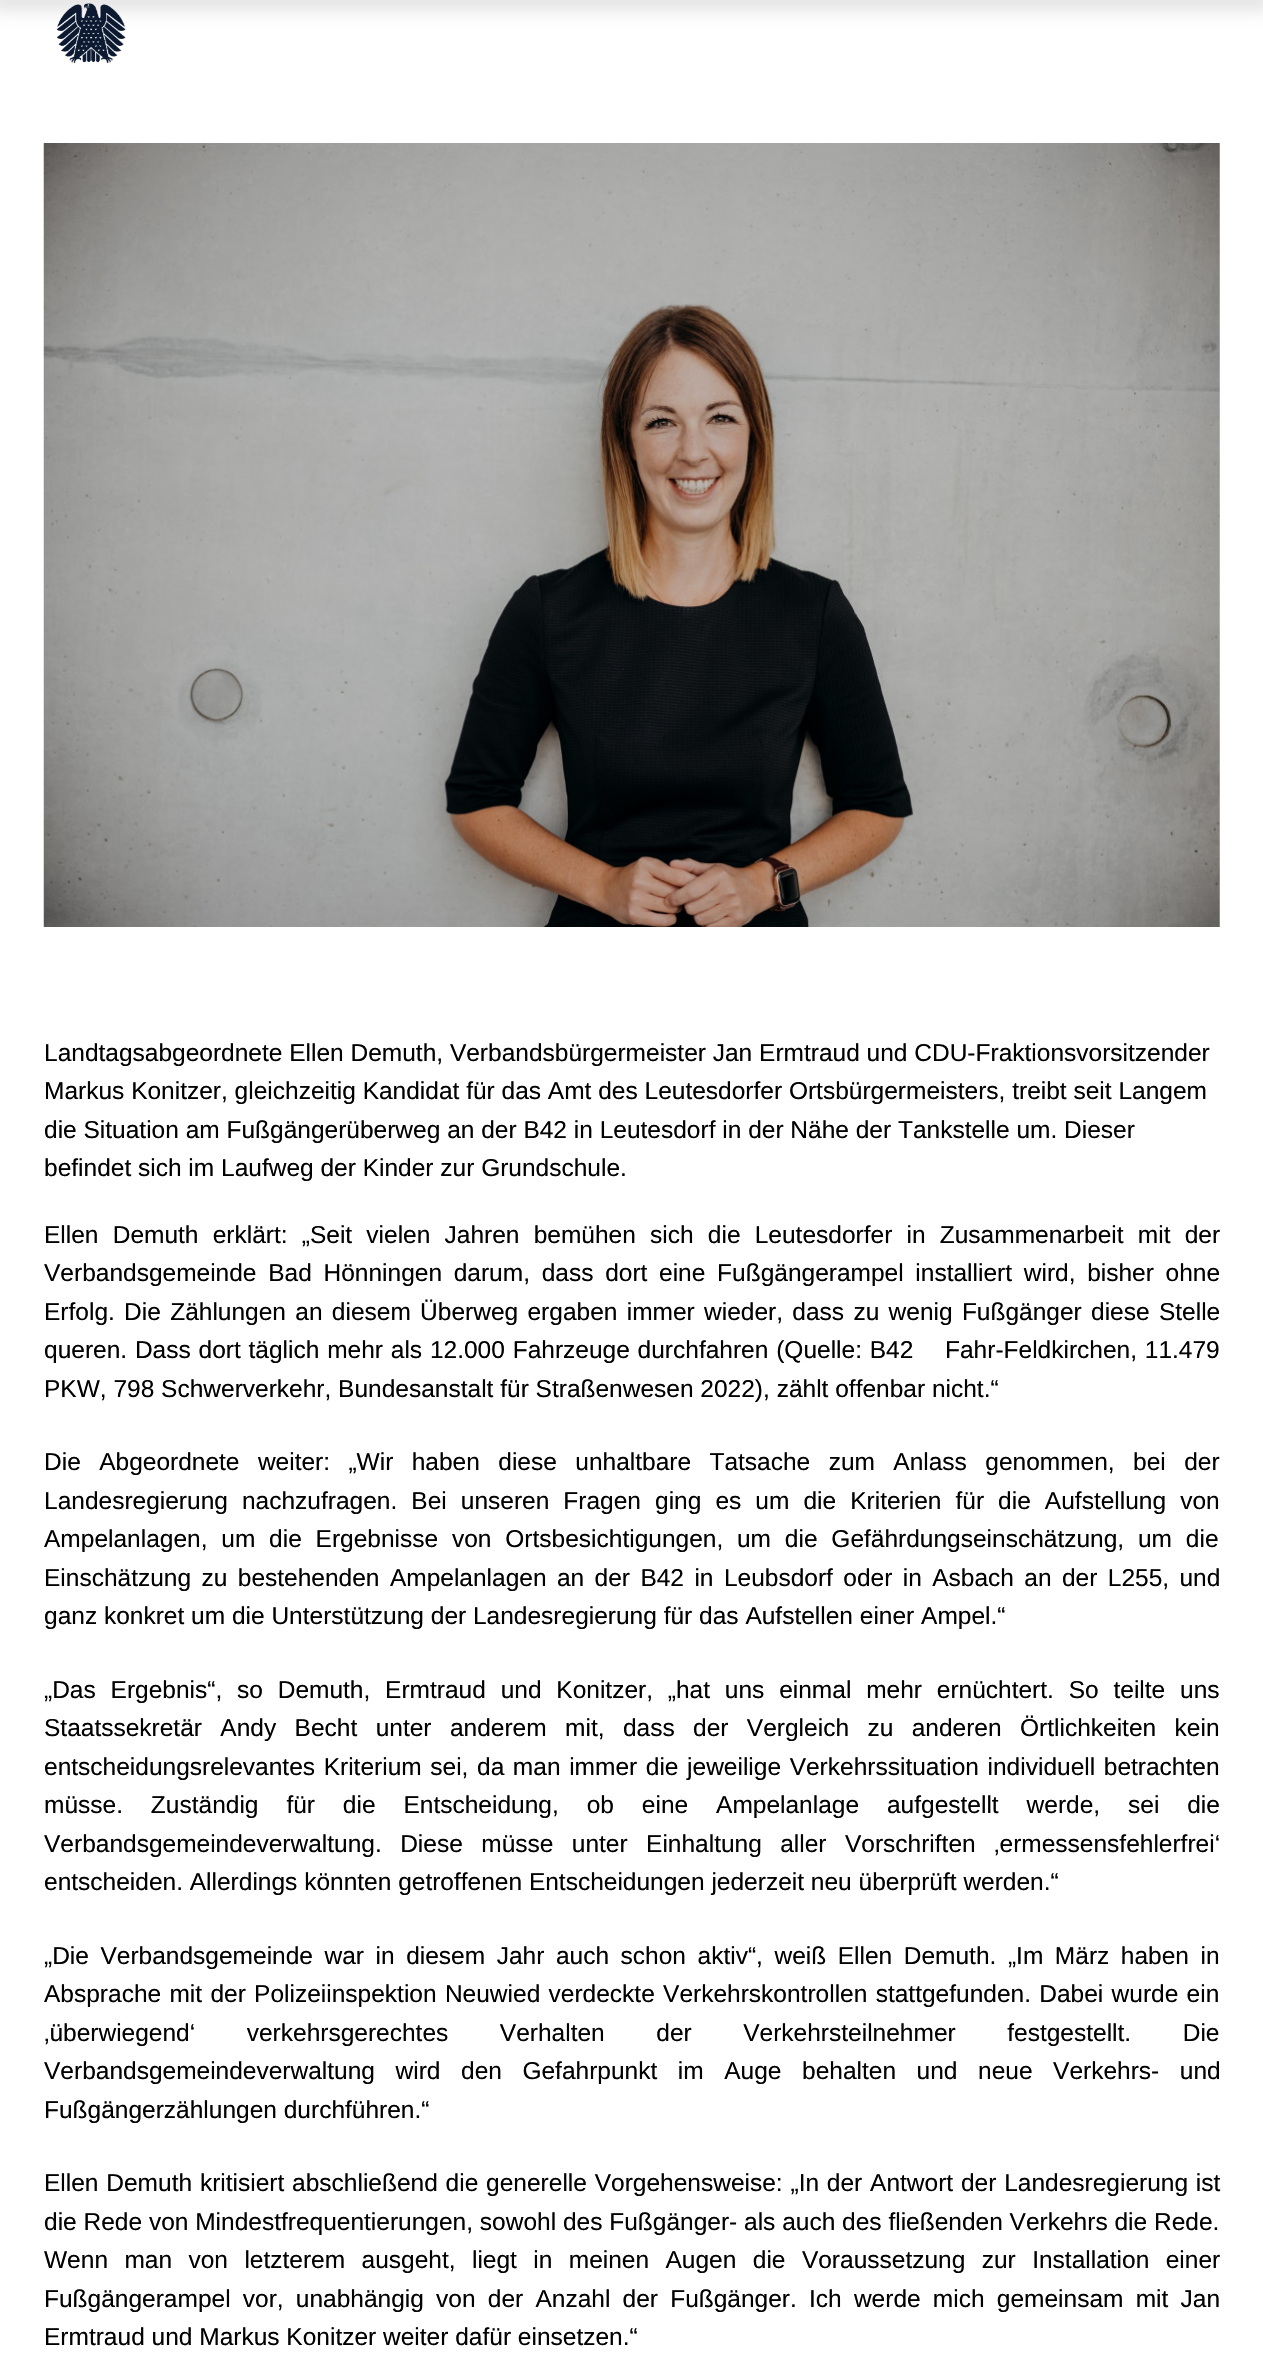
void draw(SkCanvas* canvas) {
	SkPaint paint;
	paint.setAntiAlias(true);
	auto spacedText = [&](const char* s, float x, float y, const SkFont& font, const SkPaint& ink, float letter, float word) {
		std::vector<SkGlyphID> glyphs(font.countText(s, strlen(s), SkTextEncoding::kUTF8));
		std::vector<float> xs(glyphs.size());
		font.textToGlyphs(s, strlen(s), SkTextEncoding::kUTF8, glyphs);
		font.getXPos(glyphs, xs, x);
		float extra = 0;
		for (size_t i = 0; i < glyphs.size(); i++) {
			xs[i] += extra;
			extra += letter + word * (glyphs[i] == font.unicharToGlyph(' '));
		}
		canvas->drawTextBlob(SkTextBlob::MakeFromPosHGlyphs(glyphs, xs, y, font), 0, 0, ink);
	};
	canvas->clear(0xffffffff);
	paint.setColor(0x21000000);
	paint.setMaskFilter(SkMaskFilter::MakeBlur(kNormal_SkBlurStyle, 9));
	canvas->drawRect(SkRect::MakeXYWH(-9, -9, 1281, 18), paint);
	paint.setMaskFilter(nullptr);
	canvas->drawImageRect(SkImages::DeferredFromEncodedData(SkData::MakeFromFileName("img1.png")), SkRect::MakeXYWH(56, 3, 70, 60), SkSamplingOptions());
	canvas->drawImageRect(SkImages::DeferredFromEncodedData(SkData::MakeFromFileName("img2.png")), SkRect::MakeXYWH(43, 143, 1177, 784), SkSamplingOptions());
	SkFont f1(fontMgr->matchFamilyStyle("Liberation Sans", SkFontStyle::Normal()), 24.5);
	f1.setSubpixel(true);
	paint.setColor(0xff000000);
	canvas->drawString("Landtagsabgeordnete Ellen Demuth, Verbandsbürgermeister Jan Ermtraud und CDU-Fraktionsvorsitzender", 44, 1061, f1, paint);
	canvas->drawString("Markus Konitzer, gleichzeitig Kandidat für das Amt des Leutesdorfer Ortsbürgermeisters, treibt seit Langem", 44, 1099, f1, paint);
	canvas->drawString("die Situation am Fußgängerüberweg an der B42 in Leutesdorf in der Nähe der Tankstelle um. Dieser", 44, 1138, f1, paint);
	canvas->drawString("befindet sich im Laufweg der Kinder zur Grundschule.", 44, 1176, f1, paint);
	spacedText("Ellen Demuth erklärt: „Seit vielen Jahren bemühen sich die Leutesdorfer in Zusammenarbeit mit der", 44, 1243, f1, paint, 0, 7.4);
	spacedText("Verbandsgemeinde Bad Hönningen darum, dass dort eine Fußgängerampel installiert wird, bisher ohne", 44, 1281, f1, paint, 0, 4.9);
	spacedText("Erfolg. Die Zählungen an diesem Überweg ergaben immer wieder, dass zu wenig Fußgänger diese Stelle", 44, 1320, f1, paint, 0, 2.5);
	spacedText("queren. Dass dort täglich mehr als 12.000 Fahrzeuge durchfahren (Quelle: B42", 44, 1358, f1, paint, 0, 1);
	spacedText("Fahr-Feldkirchen, 11.479", 945, 1358, f1, paint, 0, 1);
	canvas->drawString("PKW, 798 Schwerverkehr, Bundesanstalt für Straßenwesen 2022), zählt offenbar nicht.“", 44, 1397, f1, paint);
	spacedText("Die Abgeordnete weiter: „Wir haben diese unhaltbare Tatsache zum Anlass genommen, bei der", 44, 1470, f1, paint, 0, 11.6);
	spacedText("Landesregierung nachzufragen. Bei unseren Fragen ging es um die Kriterien für die Aufstellung von", 44, 1509, f1, paint, 0, 7.25);
	spacedText("Ampelanlagen, um die Ergebnisse von Ortsbesichtigungen, um die Gefährdungseinschätzung, um die", 44, 1547, f1, paint, 0, 7);
	spacedText("Einschätzung zu bestehenden Ampelanlagen an der B42 in Leubsdorf oder in Asbach an der L255, und", 44, 1586, f1, paint, 0, 3.6);
	canvas->drawString("ganz konkret um die Unterstützung der Landesregierung für das Aufstellen einer Ampel.“", 44, 1624, f1, paint);
	spacedText("„Das Ergebnis“, so Demuth, Ermtraud und Konitzer, „hat uns einmal mehr ernüchtert. So teilte uns", 44, 1698, f1, paint, 0, 8);
	spacedText("Staatssekretär Andy Becht unter anderem mit, dass der Vergleich zu anderen Örtlichkeiten kein", 44, 1736, f1, paint, 0, 11.6);
	spacedText("entscheidungsrelevantes Kriterium sei, da man immer die jeweilige Verkehrssituation individuell betrachten", 44, 1775, f1, paint, 0, 1.8);
	spacedText("müsse. Zuständig für die Entscheidung, ob eine Ampelanlage aufgestellt werde, sei die", 44, 1813, f1, paint, 0, 21.1);
	spacedText("Verbandsgemeindeverwaltung. Diese müsse unter Einhaltung aller Vorschriften ‚ermessensfehlerfrei‘", 44, 1852, f1, paint, 0, 11.6);
	canvas->drawString("entscheiden. Allerdings könnten getroffenen Entscheidungen jederzeit neu überprüft werden.“", 44, 1890, f1, paint);
	spacedText("„Die Verbandsgemeinde war in diesem Jahr auch schon aktiv“, weiß Ellen Demuth. „Im März haben in", 44, 1964, f1, paint, 0, 4.75);
	spacedText("Absprache mit der Polizeiinspektion Neuwied verdeckte Verkehrskontrollen stattgefunden. Dabei wurde ein", 44, 2002, f1, paint, 0, 1.5);
	spacedText("‚überwiegend‘ verkehrsgerechtes Verhalten der Verkehrsteilnehmer festgestellt. Die", 44, 2041, f1, paint, 0, 44.75);
	spacedText("Verbandsgemeindeverwaltung wird den Gefahrpunkt im Auge behalten und neue Verkehrs- und", 44, 2079, f1, paint, 0, 13.75);
	canvas->drawString("Fußgängerzählungen durchführen.“", 44, 2118, f1, paint);
	spacedText("Ellen Demuth kritisiert abschließend die generelle Vorgehensweise: „In der Antwort der Landesregierung ist", 44, 2191, f1, paint, 0, 1);
	canvas->drawString("die Rede von Mindestfrequentierungen, sowohl des Fußgänger- als auch des fließenden Verkehrs die Rede.", 44, 2230, f1, paint);
	spacedText("Wenn man von letzterem ausgeht, liegt in meinen Augen die Voraussetzung zur Installation einer", 44, 2268, f1, paint, 0, 9.6);
	spacedText("Fußgängerampel vor, unabhängig von der Anzahl der Fußgänger. Ich werde mich gemeinsam mit Jan", 44, 2307, f1, paint, 0, 5.4);
	canvas->drawString("Ermtraud und Markus Konitzer weiter dafür einsetzen.“", 44, 2345, f1, paint);
}
